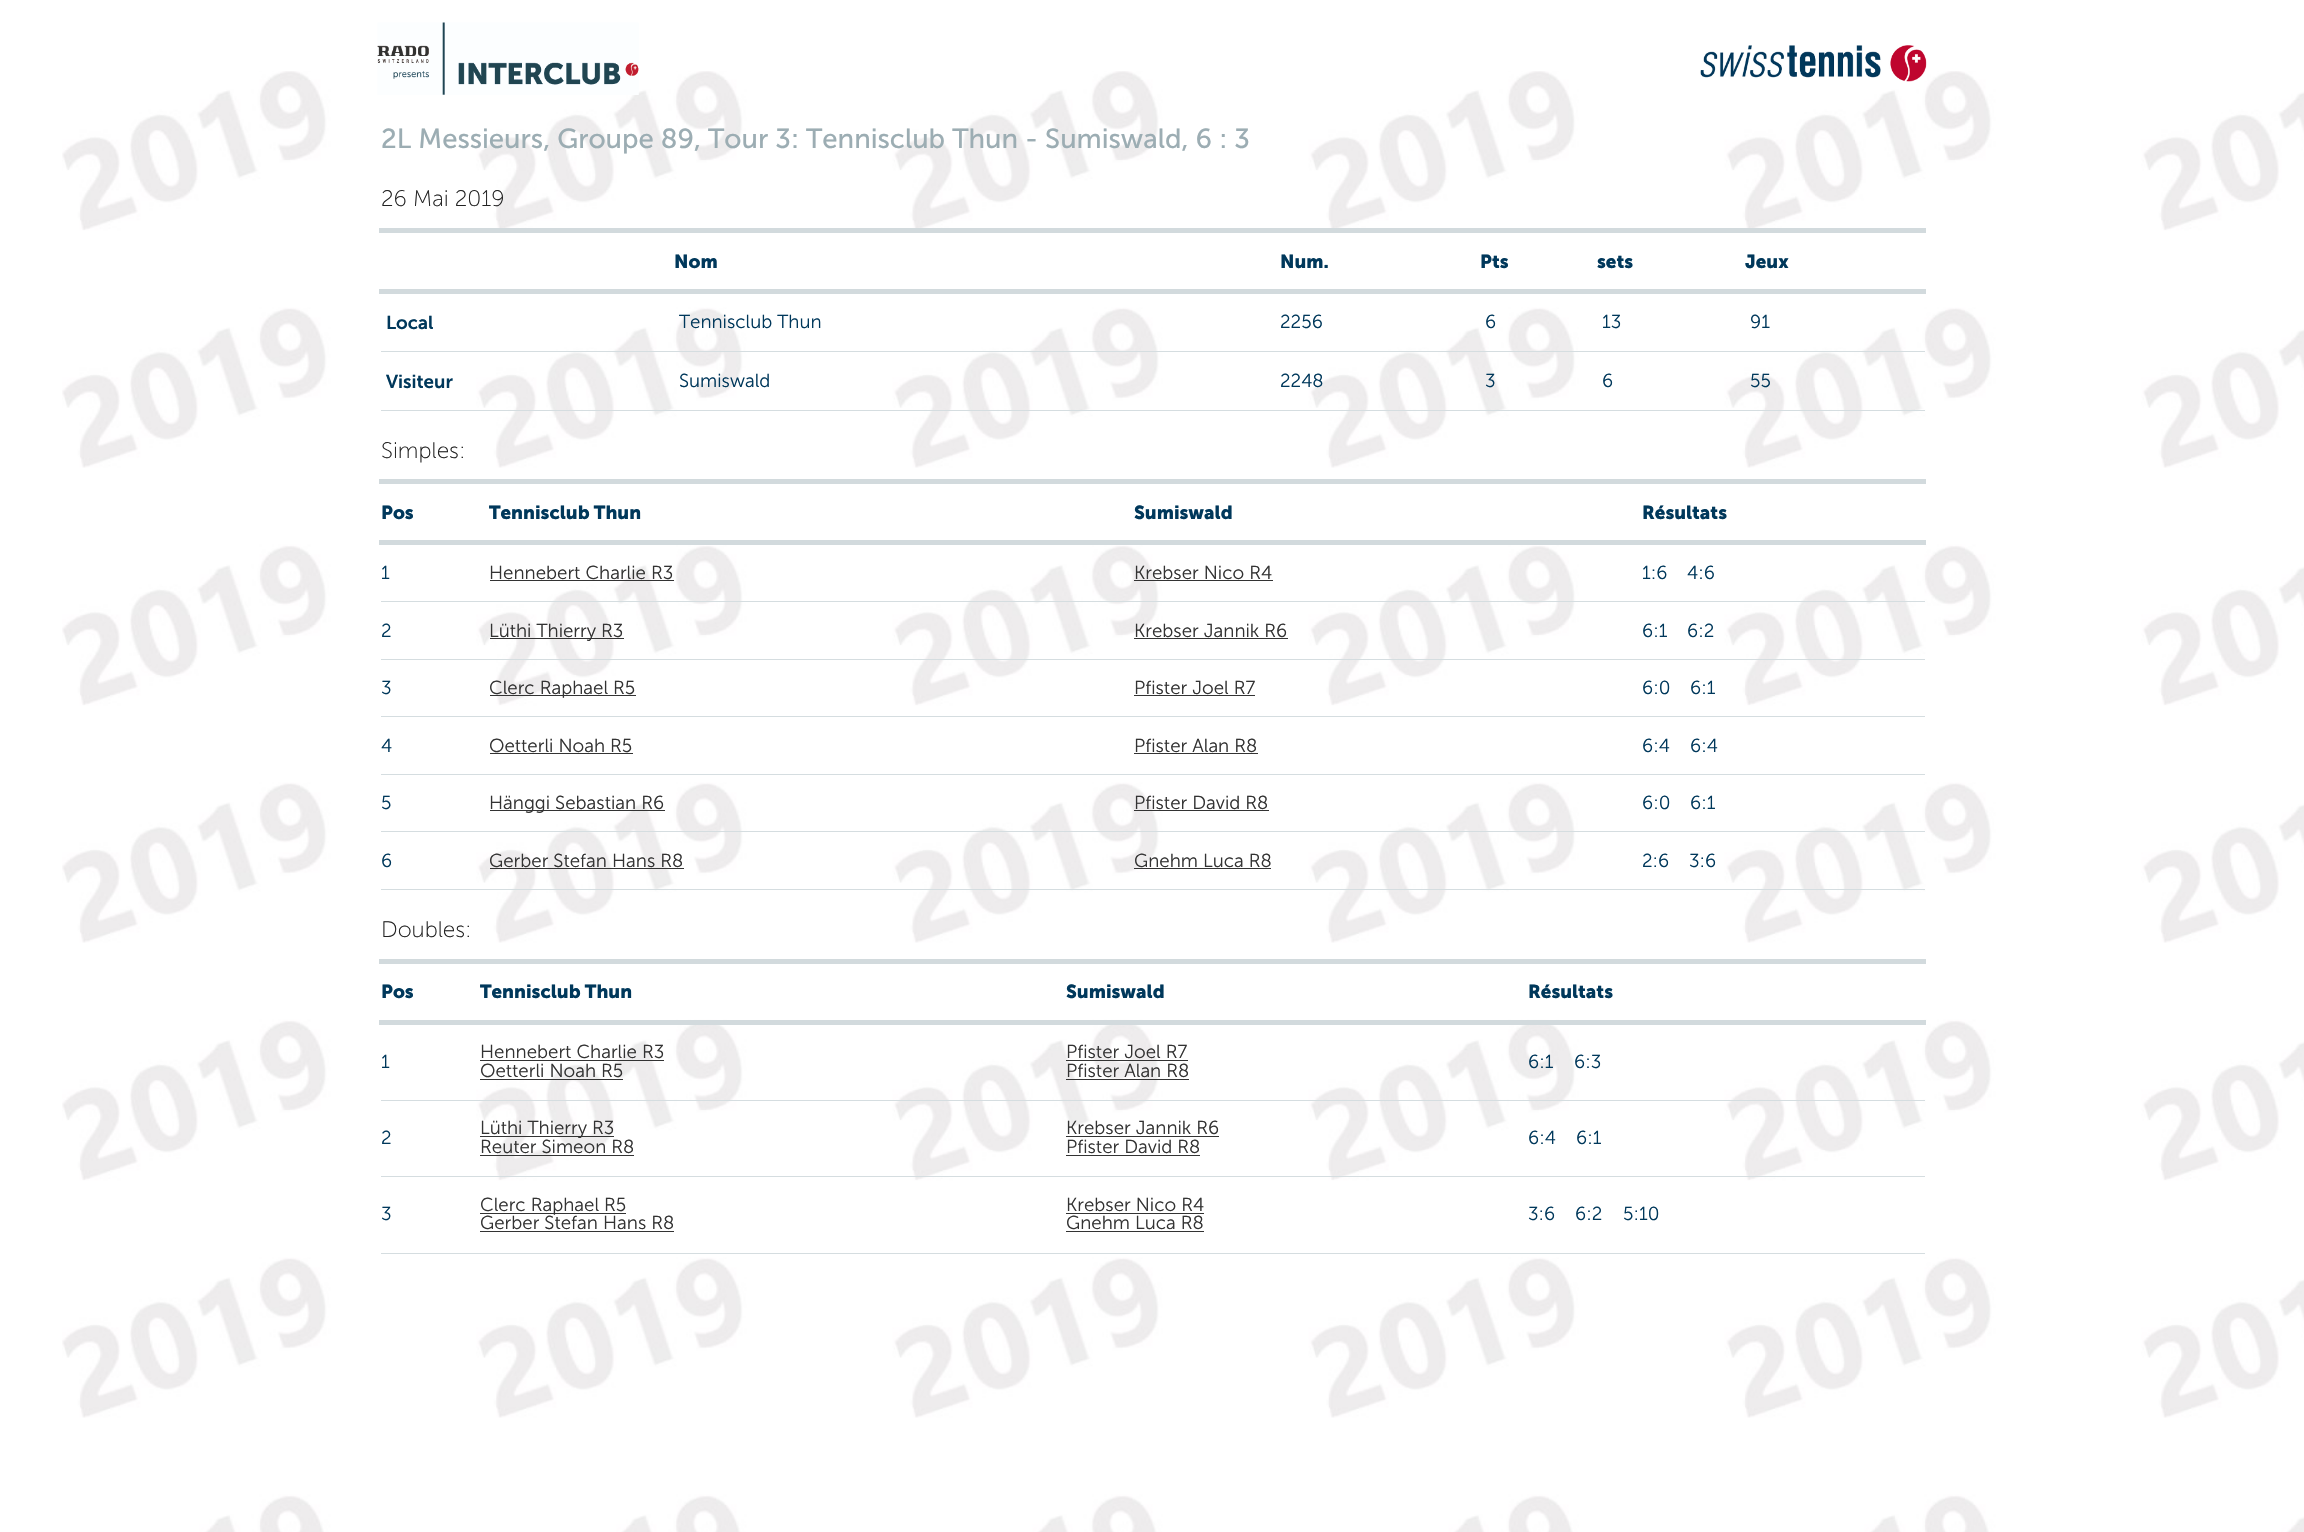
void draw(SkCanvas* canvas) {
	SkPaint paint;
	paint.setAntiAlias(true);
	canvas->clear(0xffffffff);
	canvas->drawImageRect(SkImages::DeferredFromEncodedData(SkData::MakeFromFileName("img1.png")), SkRect::MakeXYWH(62, 71, 2242, 1461), SkSamplingOptions());
	canvas->drawImageRect(SkImages::DeferredFromEncodedData(SkData::MakeFromFileName("img2.png")), SkRect::MakeXYWH(377, 22, 262, 73), SkSamplingOptions());
	canvas->drawImageRect(SkImages::DeferredFromEncodedData(SkData::MakeFromFileName("img3.png")), SkRect::MakeXYWH(1700, 45, 227, 37), SkSamplingOptions());
	SkFont f1(fontMgr->matchFamilyStyle("Museo Sans", SkFontStyle::Normal()), 27.5);
	f1.setSubpixel(true);
	paint.setColor(0xff9cadb3);
	canvas->drawString("2L Messieurs, Groupe 89, Tour 3: Tennisclub Thun - Sumiswald, 6 : 3", 381, 148, f1, paint);
	SkFont f2(fontMgr->matchFamilyStyle("Museo Sans", SkFontStyle(200, SkFontStyle::kNormal_Width, SkFontStyle::kUpright_Slant)), 22.5);
	f2.setSubpixel(true);
	paint.setColor(0xff222222);
	canvas->drawString("26 Mai 2019", 381, 206, f2, paint);
	paint.setColor(0xffd2dadd);
	canvas->drawRect(SkRect::MakeXYWH(379, 228, 1547, 5), paint);
	canvas->drawRect(SkRect::MakeXYWH(379, 289, 1547, 5), paint);
	SkFont f3(fontMgr->matchFamilyStyle("Museo Sans", SkFontStyle::Bold()), 18.75);
	f3.setSubpixel(true);
	paint.setColor(0xff00385b);
	canvas->drawString("Nom", 674, 268, f3, paint);
	canvas->drawString("Num.", 1280, 268, f3, paint);
	canvas->drawString("Pts", 1480, 268, f3, paint);
	canvas->drawString("sets", 1597, 268, f3, paint);
	canvas->drawString("Jeux", 1745, 268, f3, paint);
	SkFont f4(fontMgr->matchFamilyStyle("Museo Sans", SkFontStyle(600, SkFontStyle::kNormal_Width, SkFontStyle::kUpright_Slant)), 18.75);
	f4.setSubpixel(true);
	canvas->drawString("Local", 386, 329, f4, paint);
	SkFont f5(fontMgr->matchFamilyStyle("Museo Sans", SkFontStyle(300, SkFontStyle::kNormal_Width, SkFontStyle::kUpright_Slant)), 18.75);
	f5.setSubpixel(true);
	canvas->drawString("Tennisclub Thun", 679, 328, f5, paint);
	canvas->drawString("2256", 1280, 328, f5, paint);
	canvas->drawString("6", 1485, 328, f5, paint);
	canvas->drawString("13", 1602, 328, f5, paint);
	paint.setColor(0xffd5dde0);
	canvas->drawRect(SkRect::MakeXYWH(381, 351, 1544, 1), paint);
	paint.setColor(0xff00385b);
	canvas->drawString("91", 1750, 328, f5, paint);
	canvas->drawString("Visiteur", 386, 388, f4, paint);
	canvas->drawString("Sumiswald", 679, 387, f5, paint);
	canvas->drawString("2248", 1280, 387, f5, paint);
	canvas->drawString("3", 1485, 387, f5, paint);
	canvas->drawString("6", 1602, 387, f5, paint);
	paint.setColor(0xffd5dde0);
	canvas->drawRect(SkRect::MakeXYWH(381, 410, 1544, 1), paint);
	paint.setColor(0xff00385b);
	canvas->drawString("55", 1750, 387, f5, paint);
	paint.setColor(0xff222222);
	canvas->drawString("Simples:", 381, 458, f2, paint);
	paint.setColor(0xffd2dadd);
	canvas->drawRect(SkRect::MakeXYWH(379, 479, 1547, 5), paint);
	canvas->drawRect(SkRect::MakeXYWH(379, 540, 1547, 5), paint);
	paint.setColor(0xff00385b);
	canvas->drawString("Pos", 381, 519, f3, paint);
	canvas->drawString("Tennisclub Thun", 489, 519, f3, paint);
	canvas->drawString("Sumiswald", 1134, 519, f3, paint);
	canvas->drawString("Résultats", 1642, 519, f3, paint);
	canvas->drawString("1", 381, 579, f5, paint);
	paint.setColor(0xff333333);
	canvas->drawString("Hennebert Charlie R3", 489, 579, f5, paint);
	canvas->drawRect(SkRect::MakeXYWH(490, 580, 184, 1), paint);
	canvas->drawString("Krebser Nico R4", 1134, 579, f5, paint);
	canvas->drawRect(SkRect::MakeXYWH(1134, 580, 139, 1), paint);
	paint.setColor(0xffd5dde0);
	canvas->drawRect(SkRect::MakeXYWH(381, 601, 1544, 1), paint);
	paint.setColor(0xff00385b);
	canvas->drawString("1:6", 1642, 579, f5, paint);
	canvas->drawString("4:6", 1687, 579, f5, paint);
	canvas->drawString("2", 381, 637, f5, paint);
	paint.setColor(0xff333333);
	canvas->drawRect(SkRect::MakeXYWH(490, 638, 134, 1), paint);
	canvas->drawString("Lüthi Thierry R3", 489, 637, f5, paint);
	canvas->drawString("Krebser Jannik R6", 1134, 637, f5, paint);
	canvas->drawRect(SkRect::MakeXYWH(1134, 638, 154, 1), paint);
	paint.setColor(0xffd5dde0);
	canvas->drawRect(SkRect::MakeXYWH(381, 659, 1544, 1), paint);
	paint.setColor(0xff00385b);
	canvas->drawString("6:1", 1642, 637, f5, paint);
	canvas->drawString("6:2", 1687, 637, f5, paint);
	canvas->drawString("3", 381, 694, f5, paint);
	paint.setColor(0xff333333);
	canvas->drawRect(SkRect::MakeXYWH(490, 695, 146, 1), paint);
	canvas->drawString("Clerc Raphael R5", 489, 694, f5, paint);
	canvas->drawString("Pfister Joel R7", 1134, 694, f5, paint);
	canvas->drawRect(SkRect::MakeXYWH(1134, 695, 121, 1), paint);
	paint.setColor(0xffd5dde0);
	canvas->drawRect(SkRect::MakeXYWH(381, 716, 1544, 1), paint);
	paint.setColor(0xff00385b);
	canvas->drawString("6:0", 1642, 694, f5, paint);
	canvas->drawString("6:1", 1690, 694, f5, paint);
	canvas->drawString("4", 381, 752, f5, paint);
	paint.setColor(0xff333333);
	canvas->drawString("Oetterli Noah R5", 489, 752, f5, paint);
	canvas->drawRect(SkRect::MakeXYWH(490, 753, 143, 1), paint);
	canvas->drawString("Pfister Alan R8", 1134, 752, f5, paint);
	canvas->drawRect(SkRect::MakeXYWH(1134, 753, 124, 1), paint);
	paint.setColor(0xffd5dde0);
	canvas->drawRect(SkRect::MakeXYWH(381, 774, 1544, 1), paint);
	paint.setColor(0xff00385b);
	canvas->drawString("6:4", 1642, 752, f5, paint);
	canvas->drawString("6:4", 1690, 752, f5, paint);
	canvas->drawString("5", 381, 809, f5, paint);
	paint.setColor(0xff333333);
	canvas->drawRect(SkRect::MakeXYWH(490, 810, 175, 1), paint);
	canvas->drawString("Hänggi Sebastian R6", 489, 809, f5, paint);
	canvas->drawString("Pfister David R8", 1134, 809, f5, paint);
	canvas->drawRect(SkRect::MakeXYWH(1134, 810, 135, 1), paint);
	paint.setColor(0xffd5dde0);
	canvas->drawRect(SkRect::MakeXYWH(381, 831, 1544, 1), paint);
	paint.setColor(0xff00385b);
	canvas->drawString("6:0", 1642, 809, f5, paint);
	canvas->drawString("6:1", 1690, 809, f5, paint);
	canvas->drawString("6", 381, 867, f5, paint);
	paint.setColor(0xff333333);
	canvas->drawString("Gerber Stefan Hans R8", 489, 867, f5, paint);
	canvas->drawRect(SkRect::MakeXYWH(490, 868, 194, 1), paint);
	canvas->drawString("Gnehm Luca R8", 1134, 867, f5, paint);
	canvas->drawRect(SkRect::MakeXYWH(1134, 868, 137, 1), paint);
	paint.setColor(0xffd5dde0);
	canvas->drawRect(SkRect::MakeXYWH(381, 889, 1544, 1), paint);
	paint.setColor(0xff00385b);
	canvas->drawString("2:6", 1642, 867, f5, paint);
	canvas->drawString("3:6", 1689, 867, f5, paint);
	paint.setColor(0xff222222);
	canvas->drawString("Doubles:", 381, 937, f2, paint);
	paint.setColor(0xffd2dadd);
	canvas->drawRect(SkRect::MakeXYWH(379, 959, 1547, 5), paint);
	canvas->drawRect(SkRect::MakeXYWH(379, 1020, 1547, 5), paint);
	paint.setColor(0xff00385b);
	canvas->drawString("Pos", 381, 998, f3, paint);
	canvas->drawString("Tennisclub Thun", 480, 998, f3, paint);
	canvas->drawString("Sumiswald", 1066, 998, f3, paint);
	canvas->drawString("Résultats", 1528, 998, f3, paint);
	canvas->drawString("1", 381, 1068, f5, paint);
	paint.setColor(0xff333333);
	canvas->drawString("Hennebert Charlie R3", 480, 1058, f5, paint);
	canvas->drawRect(SkRect::MakeXYWH(480, 1060, 184, 1), paint);
	canvas->drawString("Oetterli Noah R5", 480, 1077, f5, paint);
	canvas->drawRect(SkRect::MakeXYWH(480, 1079, 143, 1), paint);
	canvas->drawString("Pfister Joel R7", 1066, 1058, f5, paint);
	canvas->drawRect(SkRect::MakeXYWH(1066, 1060, 122, 1), paint);
	canvas->drawString("Pfister Alan R8", 1066, 1077, f5, paint);
	canvas->drawRect(SkRect::MakeXYWH(1066, 1079, 123, 1), paint);
	paint.setColor(0xffd5dde0);
	canvas->drawRect(SkRect::MakeXYWH(381, 1100, 1544, 1), paint);
	paint.setColor(0xff00385b);
	canvas->drawString("6:1", 1528, 1068, f5, paint);
	canvas->drawString("6:3", 1574, 1068, f5, paint);
	canvas->drawString("2", 381, 1144, f5, paint);
	paint.setColor(0xff333333);
	canvas->drawRect(SkRect::MakeXYWH(480, 1136, 134, 1), paint);
	canvas->drawString("Lüthi Thierry R3", 480, 1134, f5, paint);
	canvas->drawString("Reuter Simeon R8", 480, 1153, f5, paint);
	canvas->drawRect(SkRect::MakeXYWH(480, 1155, 154, 1), paint);
	canvas->drawString("Krebser Jannik R6", 1066, 1134, f5, paint);
	canvas->drawRect(SkRect::MakeXYWH(1066, 1136, 153, 1), paint);
	canvas->drawString("Pfister David R8", 1066, 1153, f5, paint);
	canvas->drawRect(SkRect::MakeXYWH(1066, 1155, 134, 1), paint);
	paint.setColor(0xffd5dde0);
	canvas->drawRect(SkRect::MakeXYWH(381, 1176, 1544, 1), paint);
	paint.setColor(0xff00385b);
	canvas->drawString("6:4", 1528, 1144, f5, paint);
	canvas->drawString("6:1", 1576, 1144, f5, paint);
	canvas->drawString("3", 381, 1220, f5, paint);
	paint.setColor(0xff333333);
	canvas->drawRect(SkRect::MakeXYWH(480, 1213, 146, 1), paint);
	canvas->drawString("Clerc Raphael R5", 480, 1211, f5, paint);
	canvas->drawString("Gerber Stefan Hans R8", 480, 1229, f5, paint);
	canvas->drawRect(SkRect::MakeXYWH(480, 1231, 194, 1), paint);
	canvas->drawString("Krebser Nico R4", 1066, 1211, f5, paint);
	canvas->drawRect(SkRect::MakeXYWH(1066, 1213, 138, 1), paint);
	canvas->drawString("Gnehm Luca R8", 1066, 1229, f5, paint);
	canvas->drawRect(SkRect::MakeXYWH(1066, 1231, 138, 1), paint);
	paint.setColor(0xffd5dde0);
	canvas->drawRect(SkRect::MakeXYWH(381, 1253, 1544, 1), paint);
	paint.setColor(0xff00385b);
	canvas->drawString("3:6", 1528, 1220, f5, paint);
	canvas->drawString("6:2", 1575, 1220, f5, paint);
	canvas->drawString("5:10", 1623, 1220, f5, paint);
}
